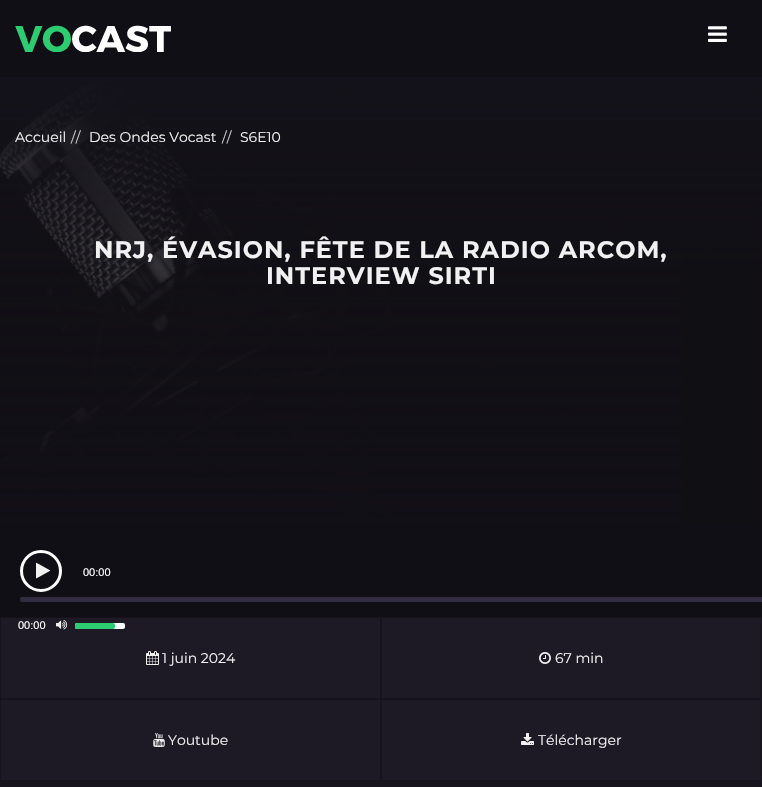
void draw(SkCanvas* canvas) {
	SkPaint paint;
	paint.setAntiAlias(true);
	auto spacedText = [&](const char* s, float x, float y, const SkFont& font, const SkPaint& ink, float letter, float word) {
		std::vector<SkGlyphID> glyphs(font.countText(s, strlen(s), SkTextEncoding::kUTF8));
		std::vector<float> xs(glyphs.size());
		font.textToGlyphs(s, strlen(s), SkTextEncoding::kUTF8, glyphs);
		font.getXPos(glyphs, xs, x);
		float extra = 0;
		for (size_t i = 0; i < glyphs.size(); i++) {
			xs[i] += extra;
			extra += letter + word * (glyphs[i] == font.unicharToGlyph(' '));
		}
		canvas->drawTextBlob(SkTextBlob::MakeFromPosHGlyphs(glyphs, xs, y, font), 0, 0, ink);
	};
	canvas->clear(0xff110f16);
	canvas->drawImageRect(SkImages::DeferredFromEncodedData(SkData::MakeFromFileName("img1.png")), SkRect::MakeXYWH(15, 25, 156, 27), SkSamplingOptions());
	canvas->drawImageRect(SkImages::DeferredFromEncodedData(SkData::MakeFromFileName("img2.png")), SkRect::MakeXYWH(708, 26, 19, 16), SkSamplingOptions());
	canvas->drawImageRect(SkImages::DeferredFromEncodedData(SkData::MakeFromFileName("img3.png")), SkRect::MakeXYWH(0, 78, 762, 447), SkSamplingOptions());
	{
		const SkColor colors[] = {0x00131119, 0xff131119};
		const float stops[] = {0, 1};
		const SkPoint ends[] = {{381, 277}, {381, 77}};
		paint.setShader(SkGradientShader::MakeLinear(ends, colors, stops, 2, SkTileMode::kClamp));
		paint.setAlpha(255);
	}
	canvas->drawRect(SkRect::MakeXYWH(0, 77, 762, 189), paint);
	SkFont f1(fontMgr->matchFamilyStyle("Montserrat", SkFontStyle::Normal()), 14);
	f1.setSubpixel(true);
	paint.setShader(nullptr);
	paint.setColor(0xfff1f1f1);
	canvas->drawString("Accueil", 15, 142, f1, paint);
	paint.setColor(0xffcccccc);
	canvas->drawString("//", 71, 142, f1, paint);
	paint.setColor(0xfff1f1f1);
	canvas->drawString("Des Ondes Vocast", 89, 142, f1, paint);
	paint.setColor(0xffcccccc);
	canvas->drawString("//", 222, 142, f1, paint);
	paint.setColor(0xfff1f1f1);
	canvas->drawString("S6E10", 240, 142, f1, paint);
	{
		const SkColor colors[] = {0x00110f16, 0xff110f16};
		const float stops[] = {0, 1};
		const SkPoint ends[] = {{381, 227}, {381, 527}};
		paint.setShader(SkGradientShader::MakeLinear(ends, colors, stops, 2, SkTileMode::kClamp));
		paint.setAlpha(255);
	}
	canvas->drawRect(SkRect::MakeXYWH(0, 245, 682, 280), paint);
	SkFont f2(fontMgr->matchFamilyStyle("Montserrat", SkFontStyle::Bold()), 24);
	f2.setSubpixel(true);
	paint.setShader(nullptr);
	paint.setColor(0xfff1f1f1);
	spacedText("NRJ, ÉVASION, FÊTE DE LA RADIO ARCOM,", 94, 258, f2, paint, 1, 0);
	spacedText("INTERVIEW SIRTI", 266, 284, f2, paint, 1, 0);
	paint.setStroke(true);
	paint.setStrokeWidth(3);
	paint.setColor(0xffffffff);
	canvas->drawCircle(41, 571, 19.5, paint);
	canvas->drawImageRect(SkImages::DeferredFromEncodedData(SkData::MakeFromFileName("img4.png")), SkRect::MakeXYWH(36, 562, 15, 17), SkSamplingOptions());
	SkFont f3(fontMgr->matchFamilyStyle("Liberation Sans", SkFontStyle::Normal()), 11);
	f3.setSubpixel(true);
	paint.setStroke(false);
	canvas->drawString("00:00", 83, 576, f3, paint);
	paint.setColor(0xff322c40);
	canvas->drawRoundRect(SkRect::MakeXYWH(20, 597, 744, 5), 2, 2, paint);
	paint.setColor(0xff1d1925);
	canvas->drawRect(SkRect::MakeXYWH(1, 618, 760, 162), paint);
	paint.setStroke(true);
	paint.setStrokeWidth(1);
	paint.setColor(0xff16131c);
	canvas->drawRect(SkRect::MakeXYWH(0.5, 617.5, 380, 81), paint);
	paint.setStroke(false);
	paint.setColor(0xffffffff);
	canvas->drawString("00:00", 18, 629, f3, paint);
	canvas->drawImageRect(SkImages::DeferredFromEncodedData(SkData::MakeFromFileName("img5.png")), SkRect::MakeXYWH(56, 620, 12, 10), SkSamplingOptions());
	canvas->drawRoundRect(SkRect::MakeXYWH(75, 623, 50, 6), 2, 2, paint);
	paint.setColor(0xff2ecc71);
	canvas->drawRoundRect(SkRect::MakeXYWH(75, 623, 40, 6), 2, 2, paint);
	canvas->drawImageRect(SkImages::DeferredFromEncodedData(SkData::MakeFromFileName("img6.png")), SkRect::MakeXYWH(146, 651, 13, 14), SkSamplingOptions());
	paint.setColor(0xfff1f1f1);
	canvas->drawString("1 juin 2024", 162, 663, f1, paint);
	paint.setStroke(true);
	paint.setColor(0xff16131c);
	canvas->drawRect(SkRect::MakeXYWH(381.5, 617.5, 380, 81), paint);
	canvas->drawImageRect(SkImages::DeferredFromEncodedData(SkData::MakeFromFileName("img7.png")), SkRect::MakeXYWH(539, 652, 12, 12), SkSamplingOptions());
	paint.setStroke(false);
	paint.setColor(0xfff1f1f1);
	canvas->drawString("67 min", 555, 663, f1, paint);
	paint.setStroke(true);
	paint.setColor(0xff16131c);
	canvas->drawRect(SkRect::MakeXYWH(0.5, 699.5, 380, 81), paint);
	canvas->drawImageRect(SkImages::DeferredFromEncodedData(SkData::MakeFromFileName("img8.png")), SkRect::MakeXYWH(153, 733, 12, 14), SkSamplingOptions());
	paint.setStroke(false);
	paint.setColor(0xfff1f1f1);
	canvas->drawString("Youtube", 168, 745, f1, paint);
	paint.setStroke(true);
	paint.setColor(0xff16131c);
	canvas->drawRect(SkRect::MakeXYWH(381.5, 699.5, 380, 81), paint);
	canvas->drawImageRect(SkImages::DeferredFromEncodedData(SkData::MakeFromFileName("img9.png")), SkRect::MakeXYWH(521, 733, 13, 12), SkSamplingOptions());
	paint.setStroke(false);
	paint.setColor(0xfff1f1f1);
	canvas->drawString("Télécharger", 538, 745, f1, paint);
	paint.setColor(0xff17141e);
	canvas->drawRect(SkRect::MakeXYWH(0, 781, 762, 6), paint);
}
